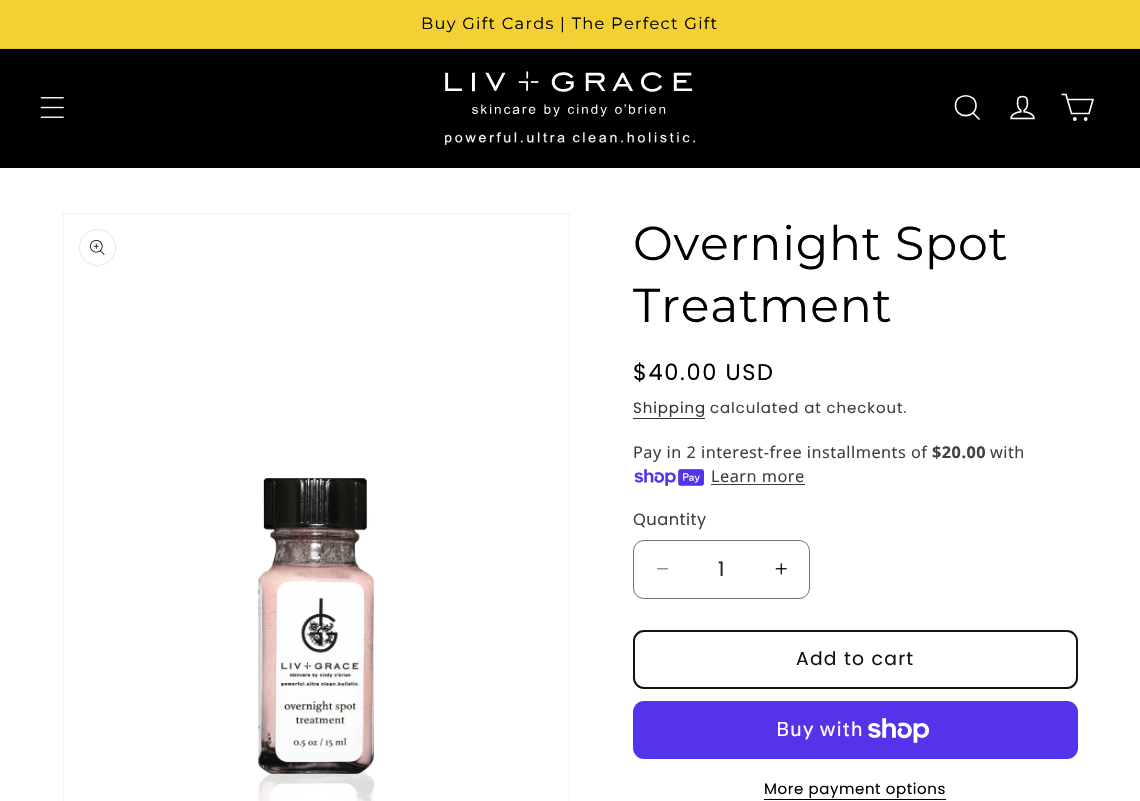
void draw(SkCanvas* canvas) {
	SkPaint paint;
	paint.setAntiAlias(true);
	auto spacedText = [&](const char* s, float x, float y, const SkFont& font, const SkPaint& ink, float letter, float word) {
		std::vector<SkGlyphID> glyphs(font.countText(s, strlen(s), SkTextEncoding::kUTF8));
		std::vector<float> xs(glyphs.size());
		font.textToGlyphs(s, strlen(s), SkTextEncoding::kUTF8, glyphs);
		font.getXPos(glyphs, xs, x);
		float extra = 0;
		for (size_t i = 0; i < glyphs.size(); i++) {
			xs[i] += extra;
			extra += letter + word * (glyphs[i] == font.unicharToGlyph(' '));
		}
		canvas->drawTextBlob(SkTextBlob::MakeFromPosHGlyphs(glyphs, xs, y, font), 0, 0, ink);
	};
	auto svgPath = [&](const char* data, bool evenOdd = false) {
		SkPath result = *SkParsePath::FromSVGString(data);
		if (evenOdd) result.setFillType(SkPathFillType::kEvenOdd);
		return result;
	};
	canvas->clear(0xffffffff);
	paint.setColor(0xfff3d034);
	canvas->drawRect(SkRect::MakeXYWH(0, 0, 1140, 48), paint);
	paint.setColor(0xffe0bf30);
	canvas->drawRect(SkRect::MakeXYWH(0, 48, 1140, 1), paint);
	SkFont f1(fontMgr->matchFamilyStyle("Montserrat", SkFontStyle::Normal()), 16.25);
	f1.setSubpixel(true);
	paint.setColor(0xff000000);
	spacedText("Buy Gift Cards | The Perfect Gift", 421, 29, f1, paint, 1.25, 0);
	canvas->drawRect(SkRect::MakeXYWH(0, 49, 1140, 119), paint);
	canvas->drawImageRect(SkImages::DeferredFromEncodedData(SkData::MakeFromFileName("img1.png")), SkRect::MakeXYWH(40, 97, 24, 21), SkSamplingOptions());
	canvas->drawImageRect(SkImages::DeferredFromEncodedData(SkData::MakeFromFileName("img2.png")), SkRect::MakeXYWH(445, 71, 250, 74), SkSamplingOptions());
	paint.setStroke(true);
	paint.setStrokeWidth(1.6);
	paint.setColor(0xffffffff);
	canvas->drawPath(svgPath("M976 105.5C976 119 955.5 119 955.5 105.5C955.5 92.5 976 92.5 976 105.5ZM979.5 119.5L973 113"), paint);
	canvas->drawImageRect(SkImages::DeferredFromEncodedData(SkData::MakeFromFileName("img3.png")), SkRect::MakeXYWH(1010, 95, 25, 25), SkSamplingOptions());
	canvas->drawPath(svgPath("M1067.5 99.5H1093L1089 113.5H1071.5L1066 94.5H1061.5"), paint);
	canvas->drawCircle(1074.8, 119, 1.1, paint);
	canvas->drawCircle(1085.7, 119, 1.1, paint);
	paint.setStrokeWidth(1);
	paint.setColor(0xfff2f2f2);
	canvas->drawRect(SkRect::MakeXYWH(63.5, 213.5, 506, 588), paint);
	paint.setColor(0xffe6e6e6);
	canvas->drawCircle(97.5, 247.5, 18, paint);
	canvas->drawImageRect(SkImages::DeferredFromEncodedData(SkData::MakeFromFileName("img4.png")), SkRect::MakeXYWH(90, 240, 15, 15), SkSamplingOptions());
	canvas->drawImageRect(SkImages::DeferredFromEncodedData(SkData::MakeFromFileName("img5.png")), SkRect::MakeXYWH(258, 478, 118, 323), SkSamplingOptions());
	SkFont f2(fontMgr->matchFamilyStyle("Montserrat", SkFontStyle::Normal()), 47.5);
	f2.setSubpixel(true);
	paint.setStroke(false);
	paint.setColor(0xff000000);
	spacedText("Overnight Spot", 633, 260, f2, paint, 0.75, 0);
	spacedText("Treatment", 633, 322, f2, paint, 0.75, 0);
	SkFont f3(fontMgr->matchFamilyStyle("Poppins", SkFontStyle::Normal()), 22.5);
	f3.setSubpixel(true);
	spacedText("$40.00 USD", 633, 380, f3, paint, 1.6, 0);
	SkFont f4(fontMgr->matchFamilyStyle("Poppins", SkFontStyle::Normal()), 15);
	f4.setSubpixel(true);
	paint.setColor(0xff363636);
	spacedText("Shipping", 633, 413, f4, paint, 0.9, 0);
	canvas->drawRect(SkRect::MakeXYWH(633, 418, 72, 1), paint);
	paint.setColor(0xff404040);
	spacedText("calculated at checkout.", 710, 413, f4, paint, 0.9, 0);
	SkFont f5(fontMgr->matchFamilyStyle("Noto Sans", SkFontStyle::Normal()), 16.25);
	f5.setSubpixel(true);
	spacedText("Pay in 2 interest-free installments of", 633, 458, f5, paint, 0.5, 0);
	SkFont f6(fontMgr->matchFamilyStyle("Noto Sans", SkFontStyle::Bold()), 16.25);
	f6.setSubpixel(true);
	spacedText("$20.00", 932, 458, f6, paint, 0.5, 0);
	spacedText("with", 990, 458, f5, paint, 0.5, 0);
	canvas->drawImageRect(SkImages::DeferredFromEncodedData(SkData::MakeFromFileName("img6.png")), SkRect::MakeXYWH(634, 469, 70, 17), SkSamplingOptions());
	spacedText("Learn more", 711, 482, f5, paint, 0.5, 0);
	canvas->drawRect(SkRect::MakeXYWH(711, 484, 94, 1), paint);
	SkFont f7(fontMgr->matchFamilyStyle("Poppins", SkFontStyle::Normal()), 16.25);
	f7.setSubpixel(true);
	spacedText("Quantity", 633, 525, f7, paint, 0.5, 0);
	canvas->drawImageRect(SkImages::DeferredFromEncodedData(SkData::MakeFromFileName("img7.png")), SkRect::MakeXYWH(657, 568, 11, 2), SkSamplingOptions());
	canvas->drawImageRect(SkImages::DeferredFromEncodedData(SkData::MakeFromFileName("img8.png")), SkRect::MakeXYWH(775, 563, 12, 12), SkSamplingOptions());
	paint.setStroke(true);
	paint.setColor(0xff737373);
	canvas->drawRoundRect(SkRect::MakeXYWH(633.5, 540.5, 176, 58), 10.5, 10.5, paint);
	SkFont f8(fontMgr->matchFamilyStyle("Poppins", SkFontStyle::Normal()), 20);
	f8.setSubpixel(true);
	paint.setStroke(false);
	paint.setColor(0xff262626);
	canvas->drawString("1", 718, 576, f8, paint);
	paint.setStroke(true);
	paint.setStrokeWidth(2);
	paint.setColor(0xff121212);
	canvas->drawRoundRect(SkRect::MakeXYWH(634, 631, 443, 57), 10, 10, paint);
	SkFont f9(fontMgr->matchFamilyStyle("Poppins", SkFontStyle::Normal()), 18.75);
	f9.setSubpixel(true);
	paint.setStroke(false);
	spacedText("Add to cart", 796, 665, f9, paint, 1.25, 0);
	paint.setColor(0xff5433eb);
	canvas->drawRoundRect(SkRect::MakeXYWH(633, 701, 445, 58), 11, 11, paint);
	SkFont f10(fontMgr->matchFamilyStyle("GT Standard", SkFontStyle::Normal()), 20);
	f10.setSubpixel(true);
	paint.setColor(0xffffffff);
	spacedText("Buy with", 776, 736, f10, paint, 0.75, 0);
	canvas->drawImageRect(SkImages::DeferredFromEncodedData(SkData::MakeFromFileName("img9.png")), SkRect::MakeXYWH(868, 718, 62, 25), SkSamplingOptions());
	paint.setColor(0xff000000);
	spacedText("More payment options", 764, 794, f4, paint, 0.6, 0);
	canvas->drawRect(SkRect::MakeXYWH(764, 799, 182, 1), paint);
}
